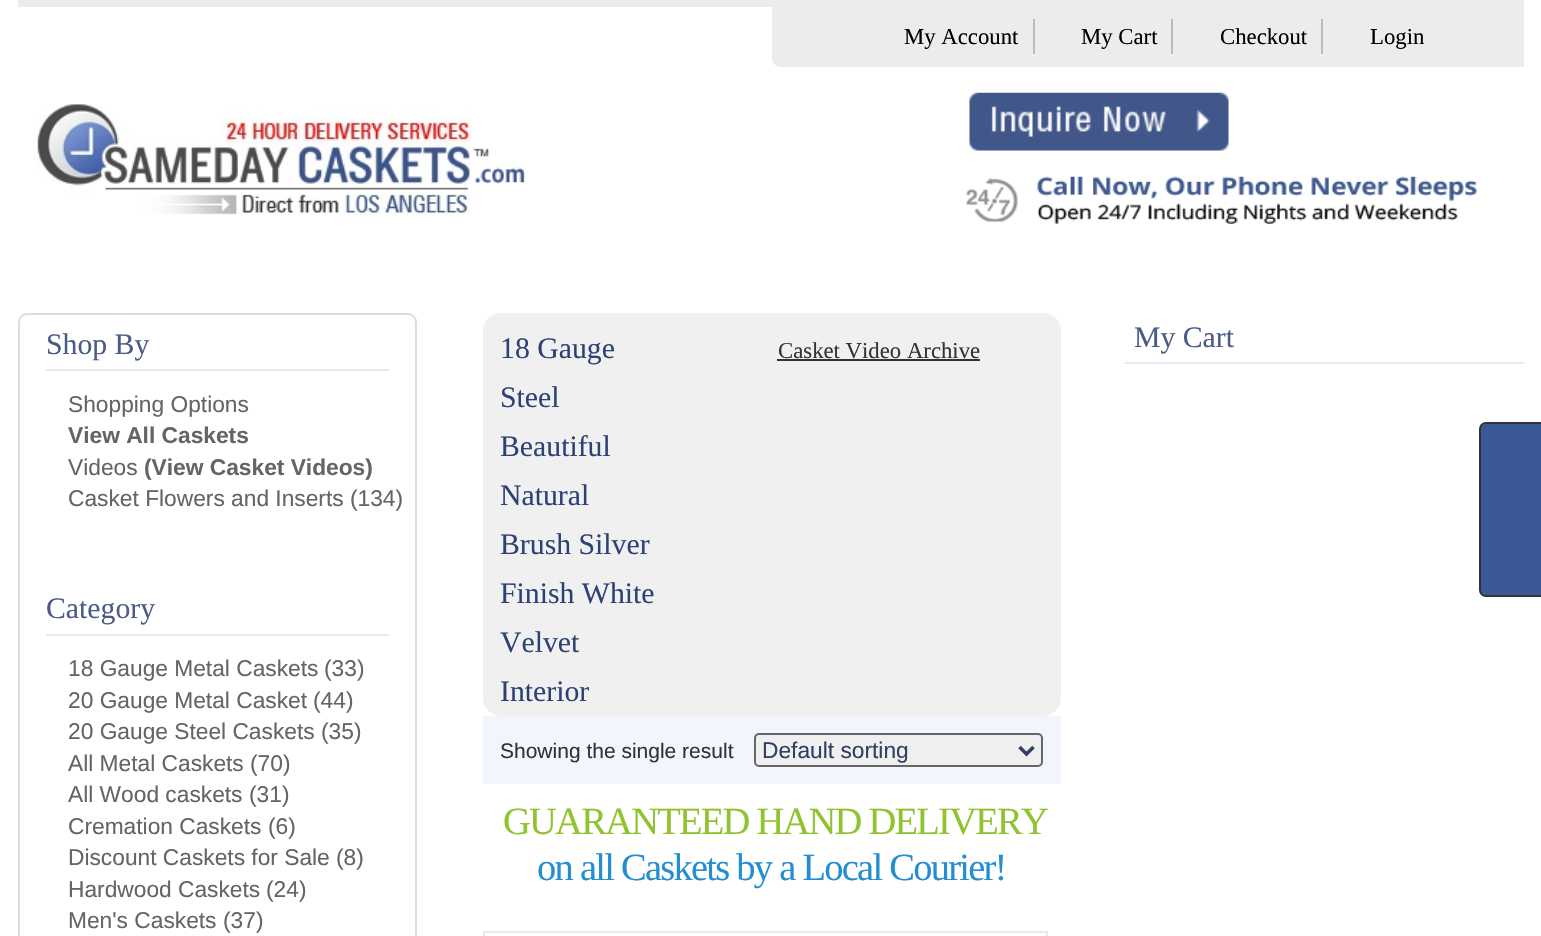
void draw(SkCanvas* canvas) {
	SkPaint paint;
	paint.setAntiAlias(true);
	auto spacedText = [&](const char* s, float x, float y, const SkFont& font, const SkPaint& ink, float letter, float word) {
		std::vector<SkGlyphID> glyphs(font.countText(s, strlen(s), SkTextEncoding::kUTF8));
		std::vector<float> xs(glyphs.size());
		font.textToGlyphs(s, strlen(s), SkTextEncoding::kUTF8, glyphs);
		font.getXPos(glyphs, xs, x);
		float extra = 0;
		for (size_t i = 0; i < glyphs.size(); i++) {
			xs[i] += extra;
			extra += letter + word * (glyphs[i] == font.unicharToGlyph(' '));
		}
		canvas->drawTextBlob(SkTextBlob::MakeFromPosHGlyphs(glyphs, xs, y, font), 0, 0, ink);
	};
	auto svgPath = [&](const char* data, bool evenOdd = false) {
		SkPath result = *SkParsePath::FromSVGString(data);
		if (evenOdd) result.setFillType(SkPathFillType::kEvenOdd);
		return result;
	};
	canvas->clear(0xffffffff);
	paint.setColor(0xffececec);
	canvas->drawRect(SkRect::MakeXYWH(18, 0, 1506, 7), paint);
	canvas->drawPath(svgPath("M772 7H1524V67H781C776 67 772 63 772 58Z"), paint);
	SkFont f1(fontMgr->matchFamilyStyle("Liberation Serif", SkFontStyle::Normal()), 22.75);
	f1.setSubpixel(true);
	paint.setColor(0xff000000);
	canvas->drawString("My Account", 904, 44, f1, paint);
	paint.setColor(0xffbcbcbc);
	canvas->drawRect(SkRect::MakeXYWH(1033, 19, 2, 35), paint);
	paint.setColor(0xff000000);
	canvas->drawString("My Cart", 1081, 44, f1, paint);
	paint.setColor(0xffbcbcbc);
	canvas->drawRect(SkRect::MakeXYWH(1171, 19, 2, 35), paint);
	paint.setColor(0xff000000);
	canvas->drawString("Checkout", 1220, 44, f1, paint);
	paint.setColor(0xffbcbcbc);
	canvas->drawRect(SkRect::MakeXYWH(1321, 19, 2, 35), paint);
	paint.setColor(0xff000000);
	canvas->drawString("Login", 1370, 44, f1, paint);
	canvas->drawImageRect(SkImages::DeferredFromEncodedData(SkData::MakeFromFileName("img1.png")), SkRect::MakeXYWH(37, 104, 488, 111), SkSamplingOptions());
	canvas->drawImageRect(SkImages::DeferredFromEncodedData(SkData::MakeFromFileName("img2.png")), SkRect::MakeXYWH(969, 92, 260, 59), SkSamplingOptions());
	canvas->drawImageRect(SkImages::DeferredFromEncodedData(SkData::MakeFromFileName("img3.png")), SkRect::MakeXYWH(966, 176, 511, 48), SkSamplingOptions());
	paint.setColor(0xff3b5998);
	canvas->drawPath(svgPath("M1486 423H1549V596H1486C1482.5 596 1480 593.5 1480 590V429C1480 425.5 1482.5 423 1486 423Z"), paint);
	paint.setStroke(true);
	paint.setStrokeWidth(2);
	paint.setColor(0xff333333);
	canvas->drawPath(svgPath("M1486 423H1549V596H1486C1482.5 596 1480 593.5 1480 590V429C1480 425.5 1482.5 423 1486 423Z"), paint);
	paint.setColor(0xffdddddd);
	canvas->drawRoundRect(SkRect::MakeXYWH(19, 314, 397, 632), 8, 8, paint);
	paint.setStroke(false);
	paint.setColor(0xffe6e9ee);
	canvas->drawRect(SkRect::MakeXYWH(46, 369, 343, 2), paint);
	SkFont f2(fontMgr->matchFamilyStyle("Liberation Serif", SkFontStyle::Normal()), 29.75);
	f2.setSubpixel(true);
	paint.setColor(0xff495b86);
	canvas->drawString("Shop By", 46, 354, f2, paint);
	SkFont f3(fontMgr->matchFamilyStyle("Liberation Sans", SkFontStyle::Normal()), 22.75);
	f3.setSubpixel(true);
	paint.setColor(0xff666565);
	canvas->drawString("Shopping Options", 68, 412, f3, paint);
	SkFont f4(fontMgr->matchFamilyStyle("Liberation Sans", SkFontStyle::Bold()), 22.75);
	f4.setSubpixel(true);
	canvas->drawString("View All Caskets", 68, 443, f4, paint);
	canvas->drawString("Videos", 68, 475, f3, paint);
	canvas->drawString("(View Casket Videos)", 144, 475, f4, paint);
	canvas->drawString("Casket Flowers and Inserts (134)", 68, 506, f3, paint);
	paint.setColor(0xffe6e9ee);
	canvas->drawRect(SkRect::MakeXYWH(46, 634, 343, 2), paint);
	paint.setColor(0xff495b86);
	canvas->drawString("Category", 46, 618, f2, paint);
	paint.setColor(0xff666565);
	canvas->drawString("18 Gauge Metal Caskets", 68, 676, f3, paint);
	canvas->drawString("(33)", 324, 676, f3, paint);
	canvas->drawString("20 Gauge Metal Casket", 68, 708, f3, paint);
	canvas->drawString("(44)", 313, 708, f3, paint);
	canvas->drawString("20 Gauge Steel Caskets", 68, 739, f3, paint);
	canvas->drawString("(35)", 321, 739, f3, paint);
	canvas->drawString("All Metal Caskets", 68, 771, f3, paint);
	canvas->drawString("(70)", 250, 771, f3, paint);
	canvas->drawString("All Wood caskets", 68, 802, f3, paint);
	canvas->drawString("(31)", 249, 802, f3, paint);
	canvas->drawString("Cremation Caskets", 68, 834, f3, paint);
	canvas->drawString("(6)", 268, 834, f3, paint);
	canvas->drawString("Discount Caskets for Sale", 68, 865, f3, paint);
	canvas->drawString("(8)", 336, 865, f3, paint);
	canvas->drawString("Hardwood Caskets", 68, 897, f3, paint);
	canvas->drawString("(24)", 266, 897, f3, paint);
	canvas->drawString("Men's Caskets", 68, 928, f3, paint);
	canvas->drawString("(37)", 223, 928, f3, paint);
	paint.setColor(0xfff0f0f0);
	canvas->drawRoundRect(SkRect::MakeXYWH(483, 313, 578, 403), 18, 18, paint);
	paint.setColor(0xff2d4274);
	canvas->drawString("18 Gauge", 500, 358, f2, paint);
	canvas->drawString("Steel", 500, 407, f2, paint);
	canvas->drawString("Beautiful", 500, 456, f2, paint);
	canvas->drawString("Natural", 500, 505, f2, paint);
	canvas->drawString("Brush Silver", 500, 554, f2, paint);
	canvas->drawString("Finish White", 500, 603, f2, paint);
	canvas->drawString("Velvet", 500, 652, f2, paint);
	canvas->drawString("Interior", 500, 701, f2, paint);
	paint.setColor(0xff333333);
	canvas->drawString("Casket Video Archive", 778, 358, f1, paint);
	canvas->drawRect(SkRect::MakeXYWH(777, 359, 203, 2), paint);
	paint.setColor(0xfff2f5fc);
	canvas->drawRect(SkRect::MakeXYWH(483, 716, 578, 68), paint);
	SkFont f5(fontMgr->matchFamilyStyle("Liberation Sans", SkFontStyle::Normal()), 21);
	f5.setSubpixel(true);
	paint.setColor(0xff333333);
	canvas->drawString("Showing the single result", 500, 758, f5, paint);
	paint.setColor(0xffefefef);
	canvas->drawRoundRect(SkRect::MakeXYWH(755, 734, 287, 32), 4, 4, paint);
	paint.setStroke(true);
	paint.setColor(0xff666666);
	canvas->drawRoundRect(SkRect::MakeXYWH(755, 734, 287, 32), 4, 4, paint);
	paint.setStrokeWidth(3.5);
	paint.setColor(0xff313f62);
	canvas->drawPath(svgPath("M1019.5 747L1026.5 754L1033.5 747"), paint);
	paint.setStroke(false);
	canvas->drawString("Default sorting", 762, 758, f3, paint);
	SkFont f6(fontMgr->matchFamilyStyle("Liberation Serif", SkFontStyle::Normal()), 38.5);
	f6.setSubpixel(true);
	paint.setColor(0xff91c22f);
	spacedText("GUARANTEED HAND DELIVERY", 503, 834, f6, paint, -1.75, 0);
	paint.setColor(0xff248ed0);
	spacedText("on all Caskets by a Local Courier!", 537, 880, f6, paint, -1.75, 0);
	paint.setStroke(true);
	paint.setStrokeWidth(2);
	paint.setColor(0xffe9e9e9);
	canvas->drawRect(SkRect::MakeXYWH(484, 932, 563, 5), paint);
	paint.setStroke(false);
	paint.setColor(0xffe6e9ee);
	canvas->drawRect(SkRect::MakeXYWH(1125, 362, 399, 2), paint);
	paint.setColor(0xff495b86);
	canvas->drawString("My Cart", 1134, 347, f2, paint);
}
